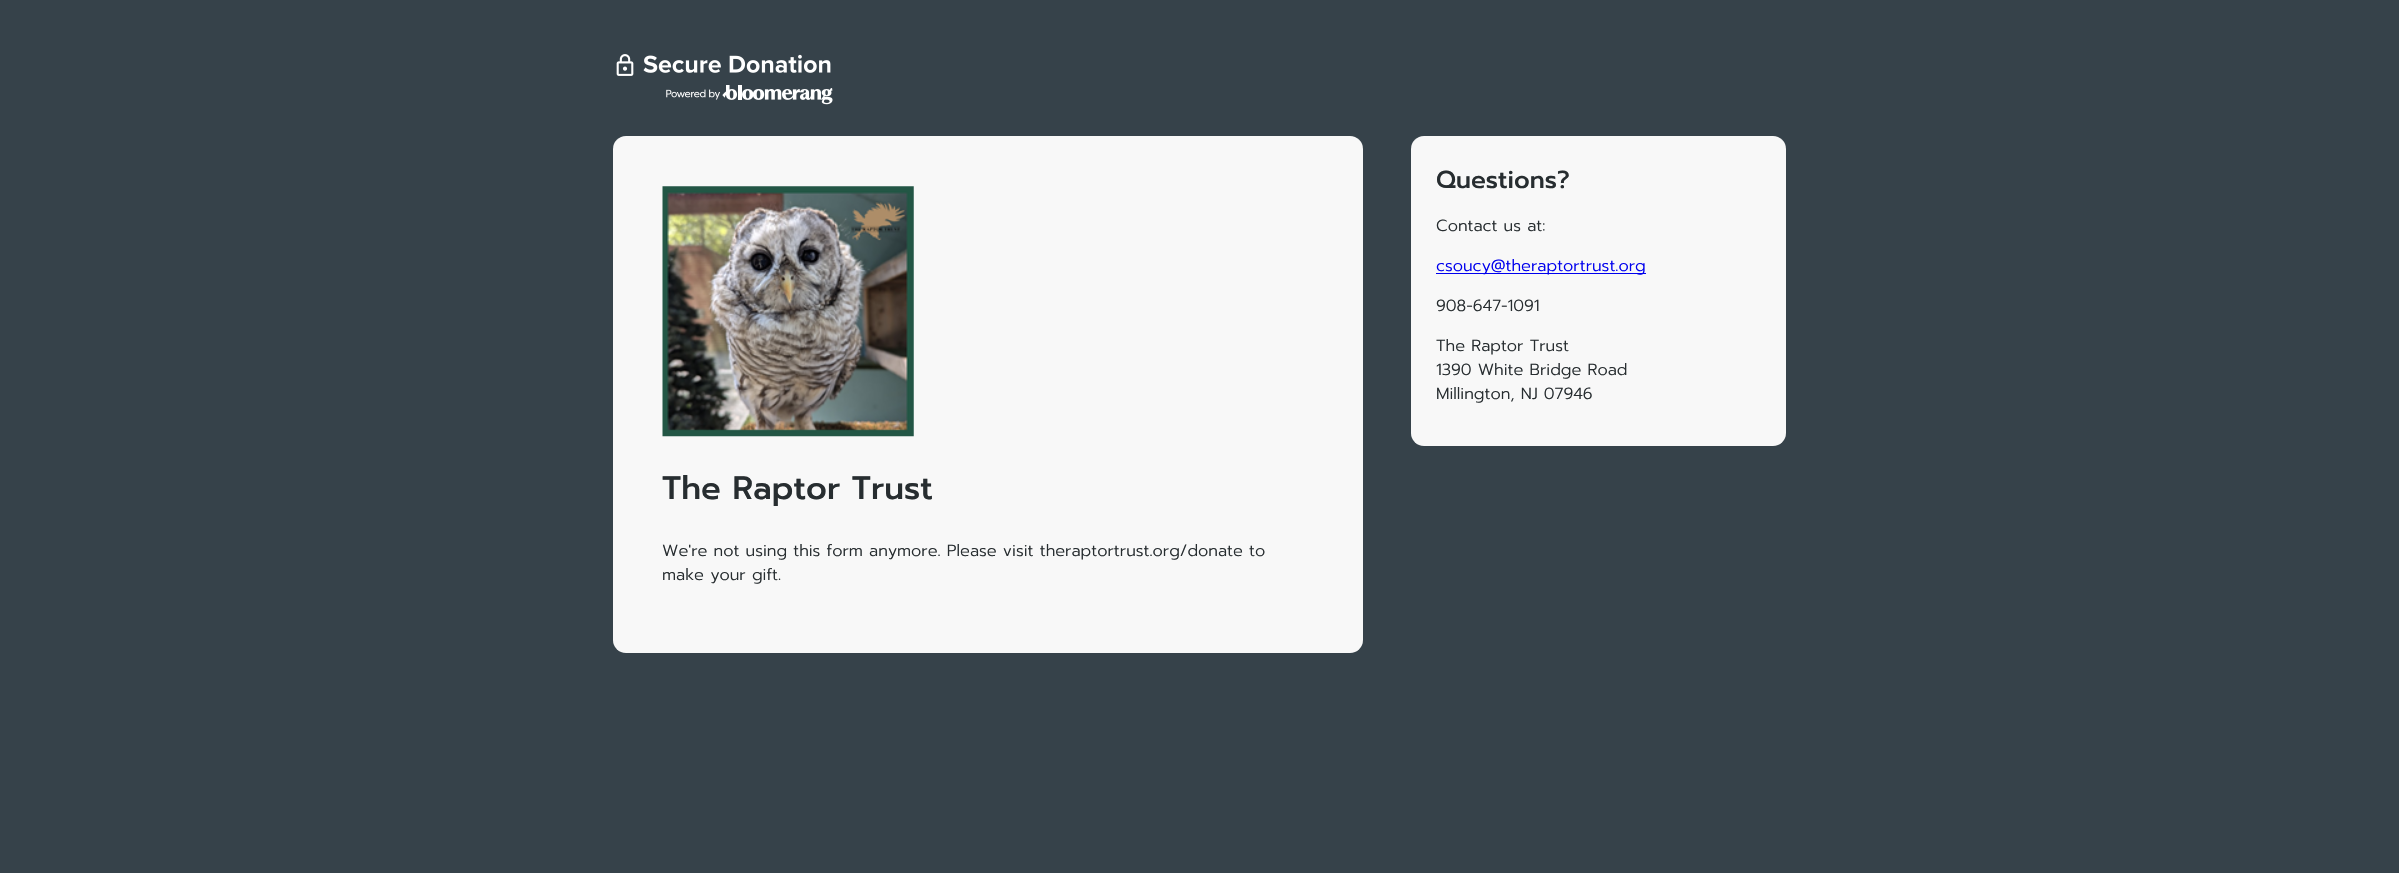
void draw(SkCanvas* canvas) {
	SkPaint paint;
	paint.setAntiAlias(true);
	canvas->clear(0xff36424a);
	canvas->drawImageRect(SkImages::DeferredFromEncodedData(SkData::MakeFromFileName("img1.png")), SkRect::MakeXYWH(616, 54, 217, 51), SkSamplingOptions());
	paint.setColor(0xfff8f8f8);
	canvas->drawRoundRect(SkRect::MakeXYWH(1411, 136, 375, 310), 13, 13, paint);
	SkFont f1(fontMgr->matchFamilyStyle("Prompt", SkFontStyle(500, SkFontStyle::kNormal_Width, SkFontStyle::kUpright_Slant)), 24.5);
	f1.setSubpixel(true);
	paint.setColor(0xff272d30);
	canvas->drawString("Questions?", 1436, 188, f1, paint);
	SkFont f2(fontMgr->matchFamilyStyle("Prompt", SkFontStyle(300, SkFontStyle::kNormal_Width, SkFontStyle::kUpright_Slant)), 16.25);
	f2.setSubpixel(true);
	canvas->drawString("Contact us at:", 1436, 231, f2, paint);
	paint.setColor(0xff0000ee);
	canvas->drawRect(SkRect::MakeXYWH(1436, 273, 210, 1), paint);
	canvas->drawString("csoucy@theraptortrust.org", 1436, 271, f2, paint);
	paint.setColor(0xff272d30);
	canvas->drawString("908-647-1091", 1436, 311, f2, paint);
	canvas->drawString("The Raptor Trust", 1436, 351, f2, paint);
	canvas->drawString("1390 White Bridge Road", 1436, 375, f2, paint);
	canvas->drawString("Millington, NJ 07946", 1436, 399, f2, paint);
	paint.setColor(0xfff8f8f8);
	canvas->drawRoundRect(SkRect::MakeXYWH(613, 136, 750, 517), 13, 13, paint);
	canvas->drawImageRect(SkImages::DeferredFromEncodedData(SkData::MakeFromFileName("img2.png")), SkRect::MakeXYWH(662, 186, 252, 251), SkSamplingOptions());
	SkFont f3(fontMgr->matchFamilyStyle("Prompt", SkFontStyle(500, SkFontStyle::kNormal_Width, SkFontStyle::kUpright_Slant)), 32.5);
	f3.setSubpixel(true);
	paint.setColor(0xff272d30);
	canvas->drawString("The Raptor Trust", 662, 499, f3, paint);
	canvas->drawString("We're not using this form anymore. Please visit theraptortrust.org/donate to", 662, 556, f2, paint);
	canvas->drawString("make your gift.", 662, 580, f2, paint);
}
